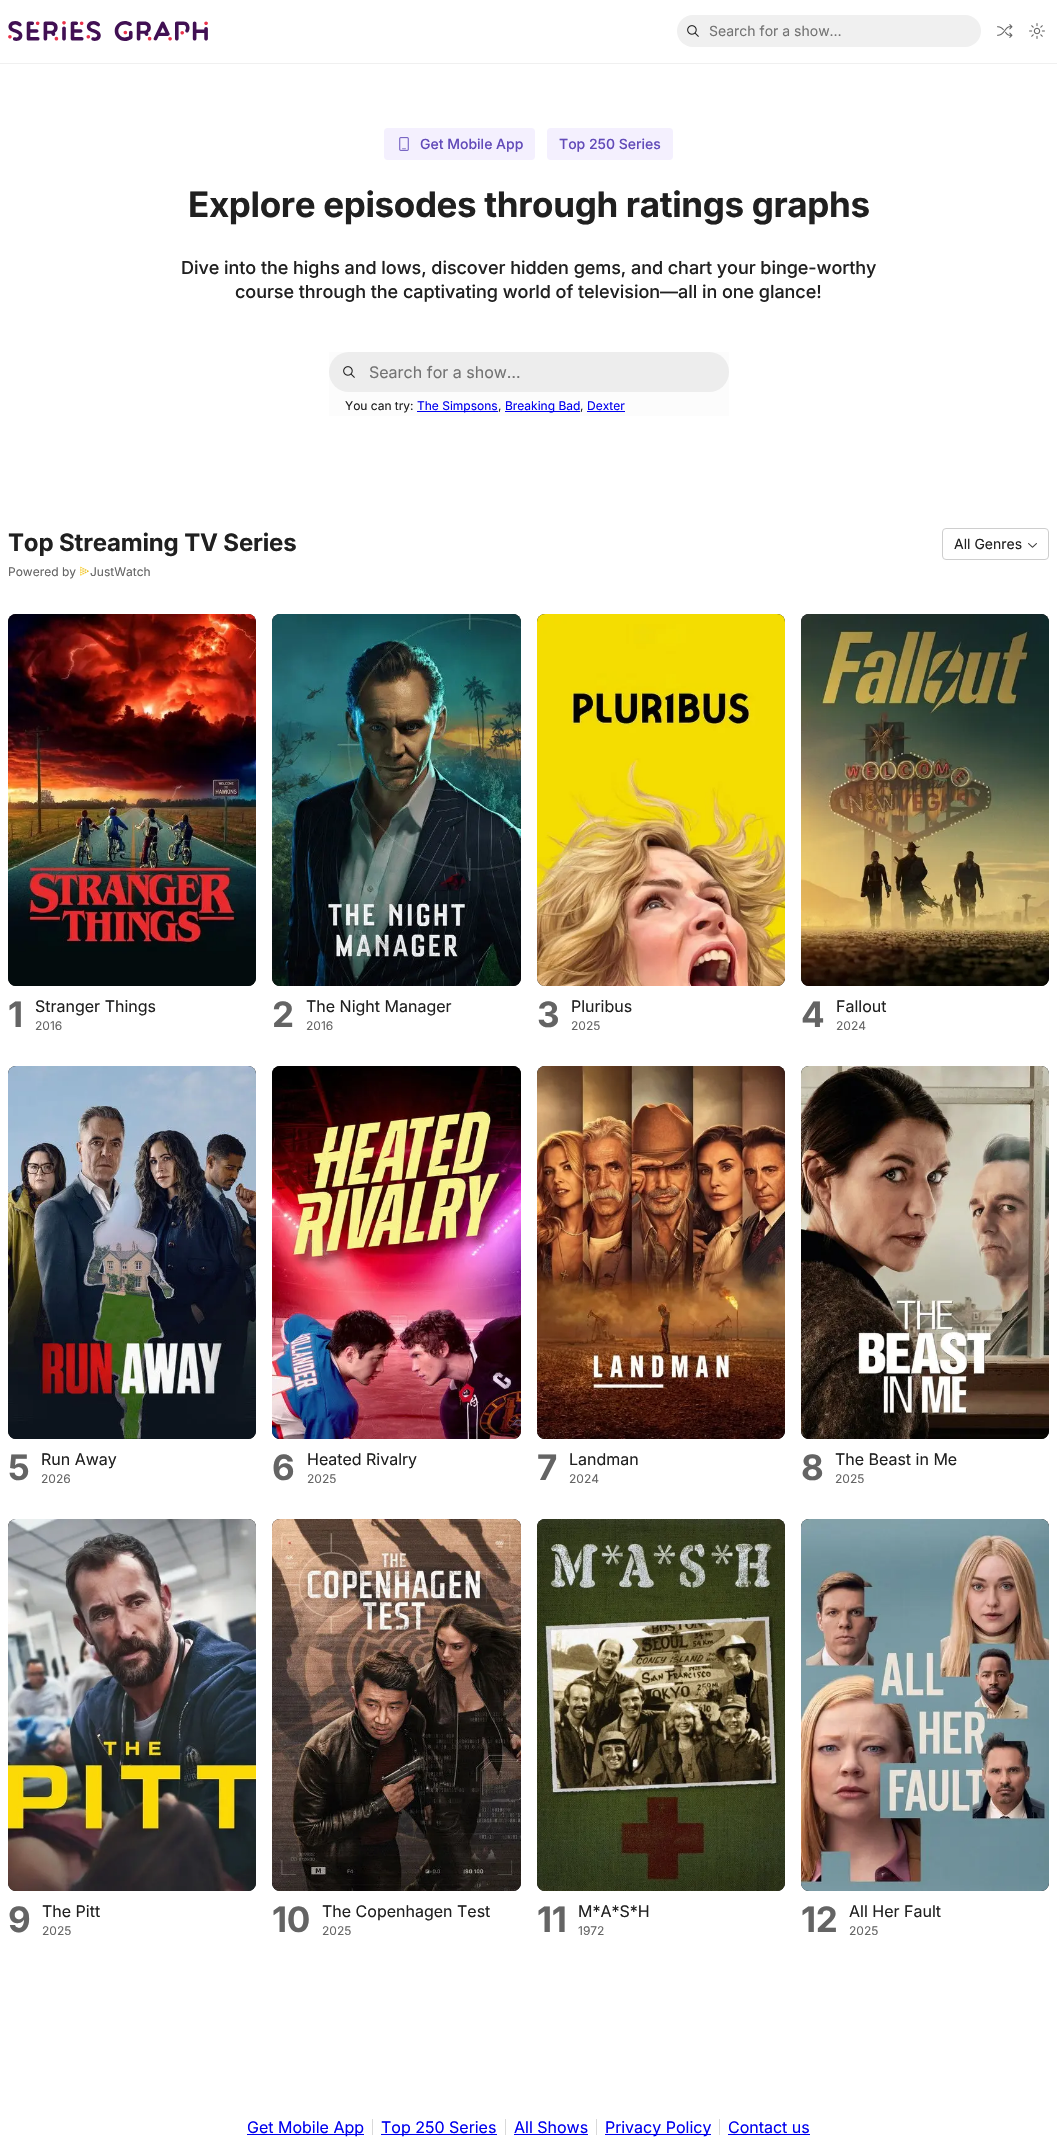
void draw(SkCanvas* canvas) {
	SkPaint paint;
	paint.setAntiAlias(true);
	auto spacedText = [&](const char* s, float x, float y, const SkFont& font, const SkPaint& ink, float letter, float word) {
		std::vector<SkGlyphID> glyphs(font.countText(s, strlen(s), SkTextEncoding::kUTF8));
		std::vector<float> xs(glyphs.size());
		font.textToGlyphs(s, strlen(s), SkTextEncoding::kUTF8, glyphs);
		font.getXPos(glyphs, xs, x);
		float extra = 0;
		for (size_t i = 0; i < glyphs.size(); i++) {
			xs[i] += extra;
			extra += letter + word * (glyphs[i] == font.unicharToGlyph(' '));
		}
		canvas->drawTextBlob(SkTextBlob::MakeFromPosHGlyphs(glyphs, xs, y, font), 0, 0, ink);
	};
	canvas->clear(0xffffffff);
	paint.setColor(0xfff0f0f0);
	canvas->drawRect(SkRect::MakeXYWH(0, 63, 1057, 1), paint);
	canvas->drawImageRect(SkImages::DeferredFromEncodedData(SkData::MakeFromFileName("img1.png")), SkRect::MakeXYWH(8, 21, 200, 20), SkSamplingOptions());
	canvas->drawRoundRect(SkRect::MakeXYWH(677, 15, 304, 32), 16, 16, paint);
	canvas->drawImageRect(SkImages::DeferredFromEncodedData(SkData::MakeFromFileName("img2.png")), SkRect::MakeXYWH(687, 25, 12, 12), SkSamplingOptions());
	SkFont f1(fontMgr->matchFamilyStyle("Inter", SkFontStyle::Normal()), 14);
	f1.setSubpixel(true);
	paint.setColor(0xff737373);
	canvas->drawString("Search for a show…", 709, 36, f1, paint);
	canvas->drawImageRect(SkImages::DeferredFromEncodedData(SkData::MakeFromFileName("img3.png")), SkRect::MakeXYWH(997, 24, 16, 14), SkSamplingOptions());
	canvas->drawImageRect(SkImages::DeferredFromEncodedData(SkData::MakeFromFileName("img4.png")), SkRect::MakeXYWH(1029, 23, 16, 16), SkSamplingOptions());
	paint.setColor(0xfff4f0fe);
	canvas->drawRoundRect(SkRect::MakeXYWH(384, 128, 151, 32), 4, 4, paint);
	canvas->drawImageRect(SkImages::DeferredFromEncodedData(SkData::MakeFromFileName("img5.png")), SkRect::MakeXYWH(399, 137, 10, 14), SkSamplingOptions());
	SkFont f2(fontMgr->matchFamilyStyle("Inter", SkFontStyle(500, SkFontStyle::kNormal_Width, SkFontStyle::kUpright_Slant)), 14);
	f2.setSubpixel(true);
	paint.setColor(0xff624bb9);
	canvas->drawString("Get Mobile App", 420, 149, f2, paint);
	paint.setColor(0xfff4f0fe);
	canvas->drawRoundRect(SkRect::MakeXYWH(547, 128, 126, 32), 4, 4, paint);
	paint.setColor(0xff624bb9);
	canvas->drawString("Top 250 Series", 559, 149, f2, paint);
	SkFont f3(fontMgr->matchFamilyStyle("Inter", SkFontStyle::Bold()), 35);
	f3.setSubpixel(true);
	paint.setColor(0xff202020);
	spacedText("Explore episodes through ratings graphs", 188, 217, f3, paint, -0.35, 0);
	SkFont f4(fontMgr->matchFamilyStyle("Inter", SkFontStyle(500, SkFontStyle::kNormal_Width, SkFontStyle::kUpright_Slant)), 18);
	f4.setSubpixel(true);
	spacedText("Dive into the highs and lows, discover hidden gems, and chart your binge-worthy", 181, 274, f4, paint, -0.05, 0);
	spacedText("course through the captivating world of television—all in one glance!", 235, 298, f4, paint, -0.05, 0);
	paint.setColor(0xfffcfcfc);
	canvas->drawRect(SkRect::MakeXYWH(329, 352, 400, 64), paint);
	paint.setColor(0xffededed);
	canvas->drawRoundRect(SkRect::MakeXYWH(329, 352, 400, 40), 20, 20, paint);
	canvas->drawImageRect(SkImages::DeferredFromEncodedData(SkData::MakeFromFileName("img6.png")), SkRect::MakeXYWH(343, 366, 12, 12), SkSamplingOptions());
	SkFont f5(fontMgr->matchFamilyStyle("Inter", SkFontStyle::Normal()), 16);
	f5.setSubpixel(true);
	paint.setColor(0xff737373);
	canvas->drawString("Search for a show…", 369, 378, f5, paint);
	SkFont f6(fontMgr->matchFamilyStyle("Inter", SkFontStyle::Normal()), 12);
	f6.setSubpixel(true);
	paint.setColor(0xff202020);
	canvas->drawString("You can try:", 345, 410, f6, paint);
	paint.setColor(0xff0000ee);
	canvas->drawRect(SkRect::MakeXYWH(417, 411, 81, 1), paint);
	canvas->drawString("The Simpsons", 417, 410, f6, paint);
	paint.setColor(0xff202020);
	canvas->drawString(",", 498, 410, f6, paint);
	paint.setColor(0xff0000ee);
	canvas->drawRect(SkRect::MakeXYWH(505, 411, 75, 1), paint);
	canvas->drawString("Breaking Bad", 505, 410, f6, paint);
	paint.setColor(0xff202020);
	canvas->drawString(",", 580, 410, f6, paint);
	paint.setColor(0xff0000ee);
	canvas->drawRect(SkRect::MakeXYWH(587, 411, 38, 1), paint);
	canvas->drawString("Dexter", 587, 410, f6, paint);
	SkFont f7(fontMgr->matchFamilyStyle("Inter", SkFontStyle::Bold()), 24);
	f7.setSubpixel(true);
	paint.setColor(0xff202020);
	spacedText("Top Streaming TV Series", 8, 551, f7, paint, -0.15, 0);
	paint.setColor(0xff646464);
	canvas->drawString("Powered by", 8, 576, f6, paint);
	canvas->drawImageRect(SkImages::DeferredFromEncodedData(SkData::MakeFromFileName("img7.png")), SkRect::MakeXYWH(80, 566, 10, 10), SkSamplingOptions());
	canvas->drawString("JustWatch", 90, 576, f6, paint);
	paint.setStroke(true);
	paint.setStrokeWidth(1);
	paint.setColor(0xffcecece);
	canvas->drawRoundRect(SkRect::MakeXYWH(942.5, 528.5, 106, 31), 3.5, 3.5, paint);
	paint.setStroke(false);
	paint.setColor(0xff202020);
	canvas->drawString("All Genres", 954, 549, f1, paint);
	canvas->drawImageRect(SkImages::DeferredFromEncodedData(SkData::MakeFromFileName("img8.png")), SkRect::MakeXYWH(1028, 543, 9, 5), SkSamplingOptions());
	paint.setColor(0xff000000);
	canvas->drawRoundRect(SkRect::MakeXYWH(8, 614, 248, 372), 8, 8, paint);
	canvas->drawImageRect(SkImages::DeferredFromEncodedData(SkData::MakeFromFileName("img9.png")), SkRect::MakeXYWH(8, 614, 248, 372), SkSamplingOptions());
	paint.setColor(0xff646464);
	spacedText("1", 8, 1027, f3, paint, -0.35, 0);
	paint.setColor(0xff202020);
	canvas->drawString("Stranger Things", 35, 1012, f5, paint);
	paint.setColor(0xff646464);
	canvas->drawString("2016", 35, 1030, f6, paint);
	paint.setColor(0xff000000);
	canvas->drawRoundRect(SkRect::MakeXYWH(272, 614, 249, 372), 8, 8, paint);
	canvas->drawImageRect(SkImages::DeferredFromEncodedData(SkData::MakeFromFileName("img10.png")), SkRect::MakeXYWH(272, 614, 249, 372), SkSamplingOptions());
	paint.setColor(0xff646464);
	spacedText("2", 272, 1027, f3, paint, -0.35, 0);
	paint.setColor(0xff202020);
	canvas->drawString("The Night Manager", 306, 1012, f5, paint);
	paint.setColor(0xff646464);
	canvas->drawString("2016", 306, 1030, f6, paint);
	paint.setColor(0xff000000);
	canvas->drawRoundRect(SkRect::MakeXYWH(537, 614, 248, 372), 8, 8, paint);
	canvas->drawImageRect(SkImages::DeferredFromEncodedData(SkData::MakeFromFileName("img11.png")), SkRect::MakeXYWH(537, 614, 248, 372), SkSamplingOptions());
	paint.setColor(0xff646464);
	spacedText("3", 537, 1027, f3, paint, -0.35, 0);
	paint.setColor(0xff202020);
	canvas->drawString("Pluribus", 571, 1012, f5, paint);
	paint.setColor(0xff646464);
	canvas->drawString("2025", 571, 1030, f6, paint);
	paint.setColor(0xff000000);
	canvas->drawRoundRect(SkRect::MakeXYWH(801, 614, 248, 372), 8, 8, paint);
	canvas->drawImageRect(SkImages::DeferredFromEncodedData(SkData::MakeFromFileName("img12.png")), SkRect::MakeXYWH(801, 614, 248, 372), SkSamplingOptions());
	paint.setColor(0xff646464);
	spacedText("4", 801, 1027, f3, paint, -0.35, 0);
	paint.setColor(0xff202020);
	canvas->drawString("Fallout", 836, 1012, f5, paint);
	paint.setColor(0xff646464);
	canvas->drawString("2024", 836, 1030, f6, paint);
	paint.setColor(0xff000000);
	canvas->drawRoundRect(SkRect::MakeXYWH(8, 1066, 248, 373), 8, 8, paint);
	canvas->drawImageRect(SkImages::DeferredFromEncodedData(SkData::MakeFromFileName("img13.png")), SkRect::MakeXYWH(8, 1066, 248, 373), SkSamplingOptions());
	paint.setColor(0xff646464);
	spacedText("5", 8, 1480, f3, paint, -0.35, 0);
	paint.setColor(0xff202020);
	canvas->drawString("Run Away", 41, 1465, f5, paint);
	paint.setColor(0xff646464);
	canvas->drawString("2026", 41, 1483, f6, paint);
	paint.setColor(0xff000000);
	canvas->drawRoundRect(SkRect::MakeXYWH(272, 1066, 249, 373), 8, 8, paint);
	canvas->drawImageRect(SkImages::DeferredFromEncodedData(SkData::MakeFromFileName("img14.png")), SkRect::MakeXYWH(272, 1066, 249, 373), SkSamplingOptions());
	paint.setColor(0xff646464);
	spacedText("6", 272, 1480, f3, paint, -0.35, 0);
	paint.setColor(0xff202020);
	canvas->drawString("Heated Rivalry", 307, 1465, f5, paint);
	paint.setColor(0xff646464);
	canvas->drawString("2025", 307, 1483, f6, paint);
	paint.setColor(0xff000000);
	canvas->drawRoundRect(SkRect::MakeXYWH(537, 1066, 248, 373), 8, 8, paint);
	canvas->drawImageRect(SkImages::DeferredFromEncodedData(SkData::MakeFromFileName("img15.png")), SkRect::MakeXYWH(537, 1066, 248, 373), SkSamplingOptions());
	paint.setColor(0xff646464);
	spacedText("7", 537, 1480, f3, paint, -0.35, 0);
	paint.setColor(0xff202020);
	canvas->drawString("Landman", 569, 1465, f5, paint);
	paint.setColor(0xff646464);
	canvas->drawString("2024", 569, 1483, f6, paint);
	paint.setColor(0xff000000);
	canvas->drawRoundRect(SkRect::MakeXYWH(801, 1066, 248, 373), 8, 8, paint);
	canvas->drawImageRect(SkImages::DeferredFromEncodedData(SkData::MakeFromFileName("img16.png")), SkRect::MakeXYWH(801, 1066, 248, 373), SkSamplingOptions());
	paint.setColor(0xff646464);
	spacedText("8", 801, 1480, f3, paint, -0.35, 0);
	paint.setColor(0xff202020);
	canvas->drawString("The Beast in Me", 835, 1465, f5, paint);
	paint.setColor(0xff646464);
	canvas->drawString("2025", 835, 1483, f6, paint);
	paint.setColor(0xff000000);
	canvas->drawRoundRect(SkRect::MakeXYWH(8, 1519, 248, 372), 8, 8, paint);
	canvas->drawImageRect(SkImages::DeferredFromEncodedData(SkData::MakeFromFileName("img17.png")), SkRect::MakeXYWH(8, 1519, 248, 372), SkSamplingOptions());
	paint.setColor(0xff646464);
	spacedText("9", 8, 1932, f3, paint, -0.35, 0);
	paint.setColor(0xff202020);
	canvas->drawString("The Pitt", 42, 1917, f5, paint);
	paint.setColor(0xff646464);
	canvas->drawString("2025", 42, 1935, f6, paint);
	paint.setColor(0xff000000);
	canvas->drawRoundRect(SkRect::MakeXYWH(272, 1519, 249, 372), 8, 8, paint);
	canvas->drawImageRect(SkImages::DeferredFromEncodedData(SkData::MakeFromFileName("img18.png")), SkRect::MakeXYWH(272, 1519, 249, 372), SkSamplingOptions());
	paint.setColor(0xff646464);
	spacedText("10", 272, 1932, f3, paint, -0.35, 0);
	paint.setColor(0xff202020);
	canvas->drawString("The Copenhagen Test", 322, 1917, f5, paint);
	paint.setColor(0xff646464);
	canvas->drawString("2025", 322, 1935, f6, paint);
	paint.setColor(0xff000000);
	canvas->drawRoundRect(SkRect::MakeXYWH(537, 1519, 248, 372), 8, 8, paint);
	canvas->drawImageRect(SkImages::DeferredFromEncodedData(SkData::MakeFromFileName("img19.png")), SkRect::MakeXYWH(537, 1519, 248, 372), SkSamplingOptions());
	paint.setColor(0xff646464);
	spacedText("11", 537, 1932, f3, paint, -0.35, 0);
	paint.setColor(0xff202020);
	canvas->drawString("M*A*S*H", 578, 1917, f5, paint);
	paint.setColor(0xff646464);
	canvas->drawString("1972", 578, 1935, f6, paint);
	paint.setColor(0xff000000);
	canvas->drawRoundRect(SkRect::MakeXYWH(801, 1519, 248, 372), 8, 8, paint);
	canvas->drawImageRect(SkImages::DeferredFromEncodedData(SkData::MakeFromFileName("img20.png")), SkRect::MakeXYWH(801, 1519, 248, 372), SkSamplingOptions());
	paint.setColor(0xff646464);
	spacedText("12", 801, 1932, f3, paint, -0.35, 0);
	paint.setColor(0xff202020);
	canvas->drawString("All Her Fault", 849, 1917, f5, paint);
	paint.setColor(0xff646464);
	canvas->drawString("2025", 849, 1935, f6, paint);
	paint.setColor(0xff0000ee);
	canvas->drawRect(SkRect::MakeXYWH(247, 2134, 117, 1), paint);
	canvas->drawString("Get Mobile App", 247, 2133, f5, paint);
	paint.setColor(0xffd9d9d9);
	canvas->drawRect(SkRect::MakeXYWH(372, 2119, 1, 16), paint);
	paint.setColor(0xff0000ee);
	canvas->drawRect(SkRect::MakeXYWH(381, 2134, 116, 1), paint);
	canvas->drawString("Top 250 Series", 381, 2133, f5, paint);
	paint.setColor(0xffd9d9d9);
	canvas->drawRect(SkRect::MakeXYWH(505, 2119, 1, 16), paint);
	paint.setColor(0xff0000ee);
	canvas->drawString("All Shows", 514, 2133, f5, paint);
	canvas->drawRect(SkRect::MakeXYWH(514, 2134, 74, 1), paint);
	paint.setColor(0xffd9d9d9);
	canvas->drawRect(SkRect::MakeXYWH(596, 2119, 1, 16), paint);
	paint.setColor(0xff0000ee);
	canvas->drawRect(SkRect::MakeXYWH(605, 2134, 106, 1), paint);
	canvas->drawString("Privacy Policy", 605, 2133, f5, paint);
	paint.setColor(0xffd9d9d9);
	canvas->drawRect(SkRect::MakeXYWH(719, 2119, 1, 16), paint);
	paint.setColor(0xff0000ee);
	canvas->drawString("Contact us", 728, 2133, f5, paint);
	canvas->drawRect(SkRect::MakeXYWH(728, 2134, 82, 1), paint);
}
